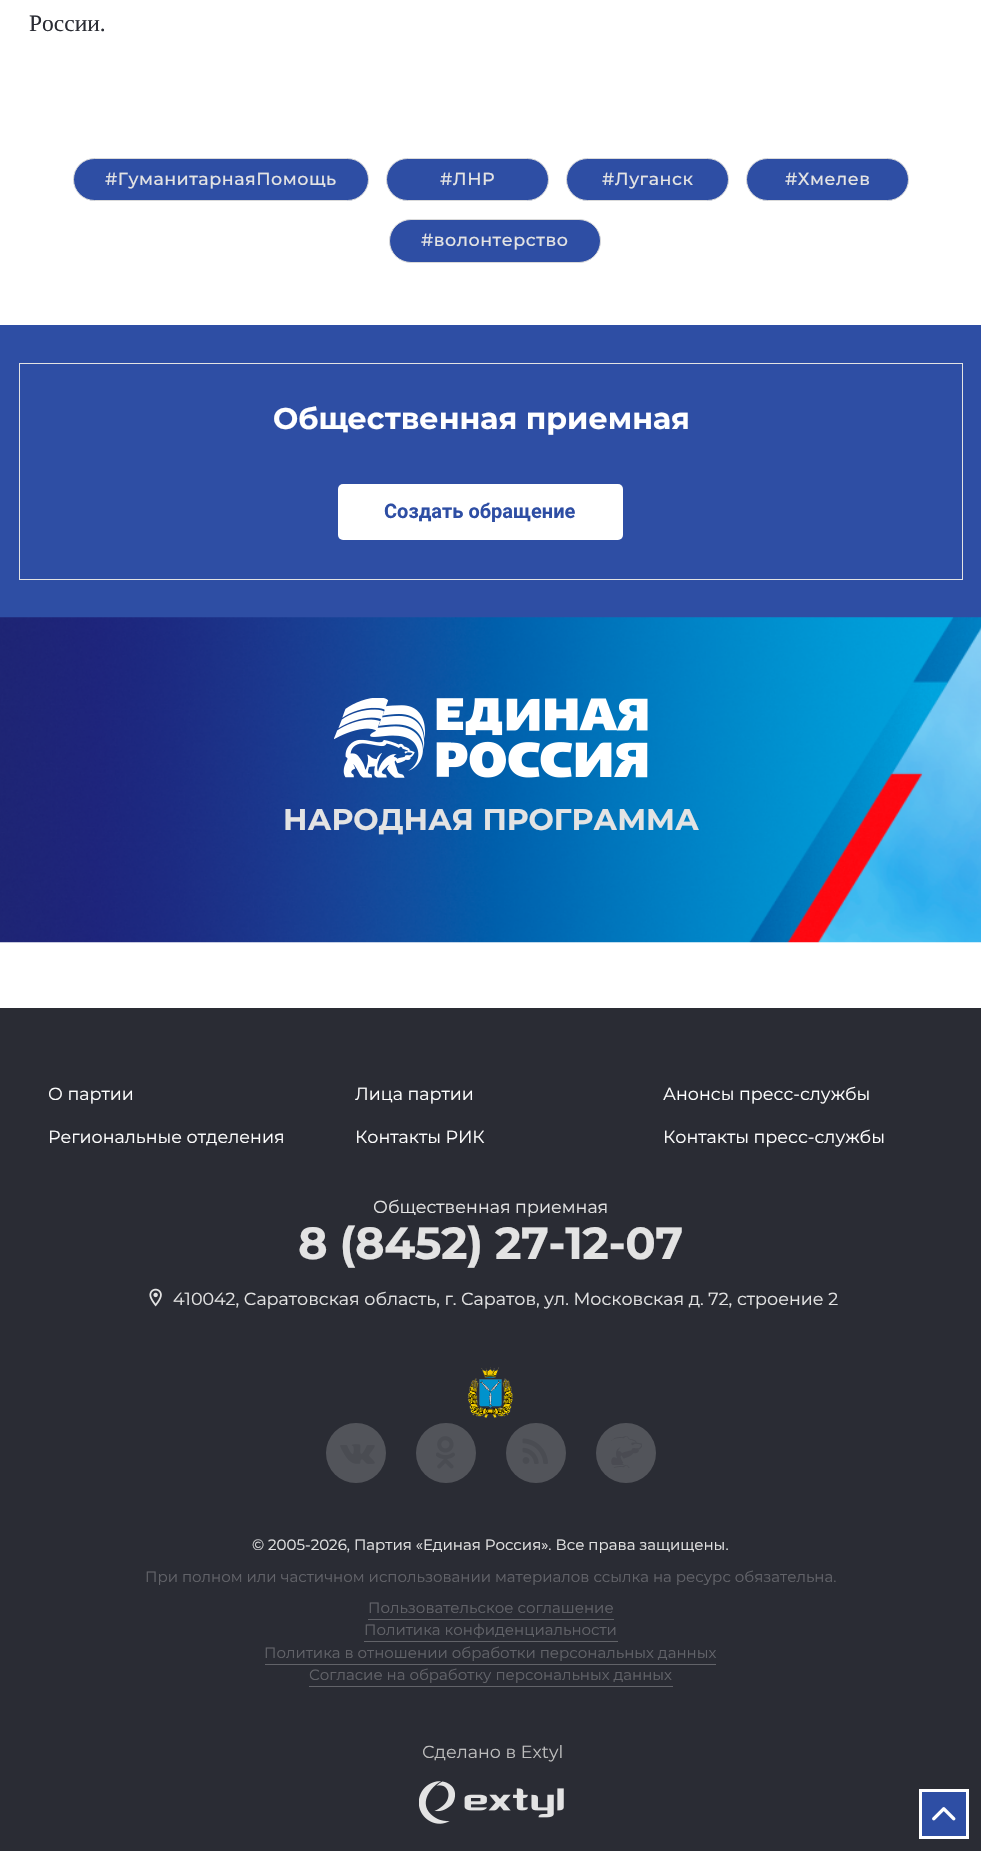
void draw(SkCanvas* canvas) {
	SkPaint paint;
	paint.setAntiAlias(true);
	auto spacedText = [&](const char* s, float x, float y, const SkFont& font, const SkPaint& ink, float letter, float word) {
		std::vector<SkGlyphID> glyphs(font.countText(s, strlen(s), SkTextEncoding::kUTF8));
		std::vector<float> xs(glyphs.size());
		font.textToGlyphs(s, strlen(s), SkTextEncoding::kUTF8, glyphs);
		font.getXPos(glyphs, xs, x);
		float extra = 0;
		for (size_t i = 0; i < glyphs.size(); i++) {
			xs[i] += extra;
			extra += letter + word * (glyphs[i] == font.unicharToGlyph(' '));
		}
		canvas->drawTextBlob(SkTextBlob::MakeFromPosHGlyphs(glyphs, xs, y, font), 0, 0, ink);
	};
	canvas->clear(0xffffffff);
	SkFont f1(fontMgr->matchFamilyStyle("Liberation Serif", SkFontStyle::Normal()), 23.5);
	f1.setSubpixel(true);
	paint.setColor(0xff2a2c34);
	canvas->drawString("России.", 29, 31, f1, paint);
	paint.setColor(0xff2e4ea4);
	canvas->drawRoundRect(SkRect::MakeXYWH(73.5, 158.5, 295, 42), 21, 21, paint);
	paint.setStroke(true);
	paint.setStrokeWidth(1);
	paint.setColor(0xffdadada);
	canvas->drawRoundRect(SkRect::MakeXYWH(73.5, 158.5, 295, 42), 21, 21, paint);
	SkFont f2(fontMgr->matchFamilyStyle("Montserrat", SkFontStyle(500, SkFontStyle::kNormal_Width, SkFontStyle::kUpright_Slant)), 17.5);
	f2.setSubpixel(true);
	paint.setStroke(false);
	paint.setColor(0xffe3e3e3);
	spacedText("#ГуманитарнаяПомощь", 105, 185, f2, paint, 0.5, 0);
	paint.setColor(0xff2e4ea4);
	canvas->drawRoundRect(SkRect::MakeXYWH(386.5, 158.5, 162, 42), 21, 21, paint);
	paint.setStroke(true);
	paint.setColor(0xffdadada);
	canvas->drawRoundRect(SkRect::MakeXYWH(386.5, 158.5, 162, 42), 21, 21, paint);
	paint.setStroke(false);
	paint.setColor(0xffe3e3e3);
	spacedText("#ЛНР", 440, 185, f2, paint, 0.5, 0);
	paint.setColor(0xff2e4ea4);
	canvas->drawRoundRect(SkRect::MakeXYWH(566.5, 158.5, 162, 42), 21, 21, paint);
	paint.setStroke(true);
	paint.setColor(0xffdadada);
	canvas->drawRoundRect(SkRect::MakeXYWH(566.5, 158.5, 162, 42), 21, 21, paint);
	paint.setStroke(false);
	paint.setColor(0xffe3e3e3);
	spacedText("#Луганск", 602, 185, f2, paint, 0.5, 0);
	paint.setColor(0xff2e4ea4);
	canvas->drawRoundRect(SkRect::MakeXYWH(746.5, 158.5, 162, 42), 21, 21, paint);
	paint.setStroke(true);
	paint.setColor(0xffdadada);
	canvas->drawRoundRect(SkRect::MakeXYWH(746.5, 158.5, 162, 42), 21, 21, paint);
	paint.setStroke(false);
	paint.setColor(0xffe3e3e3);
	spacedText("#Хмелев", 785, 185, f2, paint, 0.5, 0);
	paint.setColor(0xff2e4ea4);
	canvas->drawRoundRect(SkRect::MakeXYWH(389.5, 219.5, 211, 43), 21.5, 21.5, paint);
	paint.setStroke(true);
	paint.setColor(0xffdadada);
	canvas->drawRoundRect(SkRect::MakeXYWH(389.5, 219.5, 211, 43), 21.5, 21.5, paint);
	paint.setStroke(false);
	paint.setColor(0xffe3e3e3);
	spacedText("#волонтерство", 421, 246, f2, paint, 0.5, 0);
	paint.setColor(0xff2e4ea4);
	canvas->drawRect(SkRect::MakeXYWH(0, 325, 981, 293), paint);
	paint.setStroke(true);
	paint.setColor(0xffe3e3e3);
	canvas->drawRect(SkRect::MakeXYWH(19.5, 363.5, 943, 216), paint);
	SkFont f3(fontMgr->matchFamilyStyle("Montserrat", SkFontStyle::Bold()), 30);
	f3.setSubpixel(true);
	paint.setStroke(false);
	paint.setColor(0xffffffff);
	canvas->drawString("Общественная приемная", 273, 429, f3, paint);
	canvas->drawRoundRect(SkRect::MakeXYWH(338, 484, 285, 56), 5, 5, paint);
	SkFont f4(fontMgr->matchFamilyStyle("Roboto", SkFontStyle::Bold()), 20);
	f4.setSubpixel(true);
	paint.setColor(0xff2e4ea4);
	canvas->drawString("Создать обращение", 384, 518, f4, paint);
	canvas->drawImageRect(SkImages::DeferredFromEncodedData(SkData::MakeFromFileName("img1.png")), SkRect::MakeXYWH(0, 617, 981, 326), SkSamplingOptions());
	canvas->drawImageRect(SkImages::DeferredFromEncodedData(SkData::MakeFromFileName("img2.png")), SkRect::MakeXYWH(334, 698, 314, 80), SkSamplingOptions());
	paint.setColor(0xffe3e3e3);
	canvas->drawString("НАРОДНАЯ ПРОГРАММА", 283, 830, f3, paint);
	paint.setColor(0xff2a2c34);
	canvas->drawRect(SkRect::MakeXYWH(0, 1008, 981, 843), paint);
	SkFont f5(fontMgr->matchFamilyStyle("Montserrat", SkFontStyle::Normal()), 17.5);
	f5.setSubpixel(true);
	paint.setColor(0xffffffff);
	canvas->drawString("О партии", 48, 1100, f5, paint);
	canvas->drawString("Лица партии", 355, 1100, f5, paint);
	canvas->drawString("Анонсы пресс-службы", 663, 1100, f5, paint);
	canvas->drawString("Региональные отделения", 48, 1143, f5, paint);
	canvas->drawString("Контакты РИК", 355, 1143, f5, paint);
	canvas->drawString("Контакты пресс-службы", 663, 1143, f5, paint);
	paint.setColor(0xffe3e3e3);
	canvas->drawString("Общественная приемная", 373, 1213, f5, paint);
	SkFont f6(fontMgr->matchFamilyStyle("Montserrat", SkFontStyle::Bold()), 45);
	f6.setSubpixel(true);
	spacedText("8 (8452) 27-12-07", 298, 1259, f6, paint, -0.5, 0);
	canvas->drawImageRect(SkImages::DeferredFromEncodedData(SkData::MakeFromFileName("img3.png")), SkRect::MakeXYWH(149, 1288, 13, 19), SkSamplingOptions());
	canvas->drawString("410042, Саратовская область, г. Саратов, ул. Московская д. 72, строение 2", 173, 1305, f5, paint);
	canvas->drawImageRect(SkImages::DeferredFromEncodedData(SkData::MakeFromFileName("img4.png")), SkRect::MakeXYWH(467, 1367, 46, 51), SkSamplingOptions());
	paint.setColor(0xff52545a);
	canvas->drawCircle(356, 1453, 30, paint);
	canvas->drawImageRect(SkImages::DeferredFromEncodedData(SkData::MakeFromFileName("img5.png")), SkRect::MakeXYWH(340, 1444, 35, 20), SkSamplingOptions());
	canvas->drawCircle(446, 1453, 30, paint);
	canvas->drawImageRect(SkImages::DeferredFromEncodedData(SkData::MakeFromFileName("img6.png")), SkRect::MakeXYWH(436, 1436, 19, 33), SkSamplingOptions());
	canvas->drawCircle(536, 1453, 30, paint);
	canvas->drawImageRect(SkImages::DeferredFromEncodedData(SkData::MakeFromFileName("img7.png")), SkRect::MakeXYWH(522, 1438, 26, 26), SkSamplingOptions());
	canvas->drawCircle(626, 1453, 30, paint);
	canvas->drawImageRect(SkImages::DeferredFromEncodedData(SkData::MakeFromFileName("img8.png")), SkRect::MakeXYWH(611, 1436, 31, 32), SkSamplingOptions());
	SkFont f7(fontMgr->matchFamilyStyle("Montserrat", SkFontStyle::Normal()), 15);
	f7.setSubpixel(true);
	paint.setColor(0xffe3e3e3);
	canvas->drawString("© 2005-2026, Партия «Единая Россия». Все права защищены.", 252, 1550, f7, paint);
	paint.setColor(0xff626369);
	canvas->drawString("При полном или частичном использовании материалов ссылка на ресурс обязательна.", 145, 1582, f7, paint);
	canvas->drawString("Пользовательское соглашение", 368, 1613, f7, paint);
	canvas->drawRect(SkRect::MakeXYWH(368, 1619, 246, 1), paint);
	canvas->drawString("Политика конфиденциальности", 364, 1635, f7, paint);
	canvas->drawRect(SkRect::MakeXYWH(364, 1641, 254, 1), paint);
	canvas->drawString("Политика в отношении обработки персональных данных", 264, 1658, f7, paint);
	canvas->drawRect(SkRect::MakeXYWH(265, 1664, 451, 1), paint);
	canvas->drawString("Согласие на обработку персональных данных", 309, 1680, f7, paint);
	canvas->drawRect(SkRect::MakeXYWH(309, 1686, 364, 1), paint);
	paint.setColor(0xffbdbdbd);
	canvas->drawString("Сделано в Extyl", 422, 1758, f5, paint);
	canvas->drawImageRect(SkImages::DeferredFromEncodedData(SkData::MakeFromFileName("img9.png")), SkRect::MakeXYWH(419, 1781, 145, 43), SkSamplingOptions());
	paint.setColor(0xff2e4ea4);
	canvas->drawRect(SkRect::MakeXYWH(920.5, 1790.5, 47, 47), paint);
	paint.setStroke(true);
	paint.setStrokeWidth(3);
	paint.setColor(0xffffffff);
	canvas->drawRect(SkRect::MakeXYWH(920.5, 1790.5, 47, 47), paint);
	canvas->drawImageRect(SkImages::DeferredFromEncodedData(SkData::MakeFromFileName("img10.png")), SkRect::MakeXYWH(932, 1807, 24, 14), SkSamplingOptions());
}
